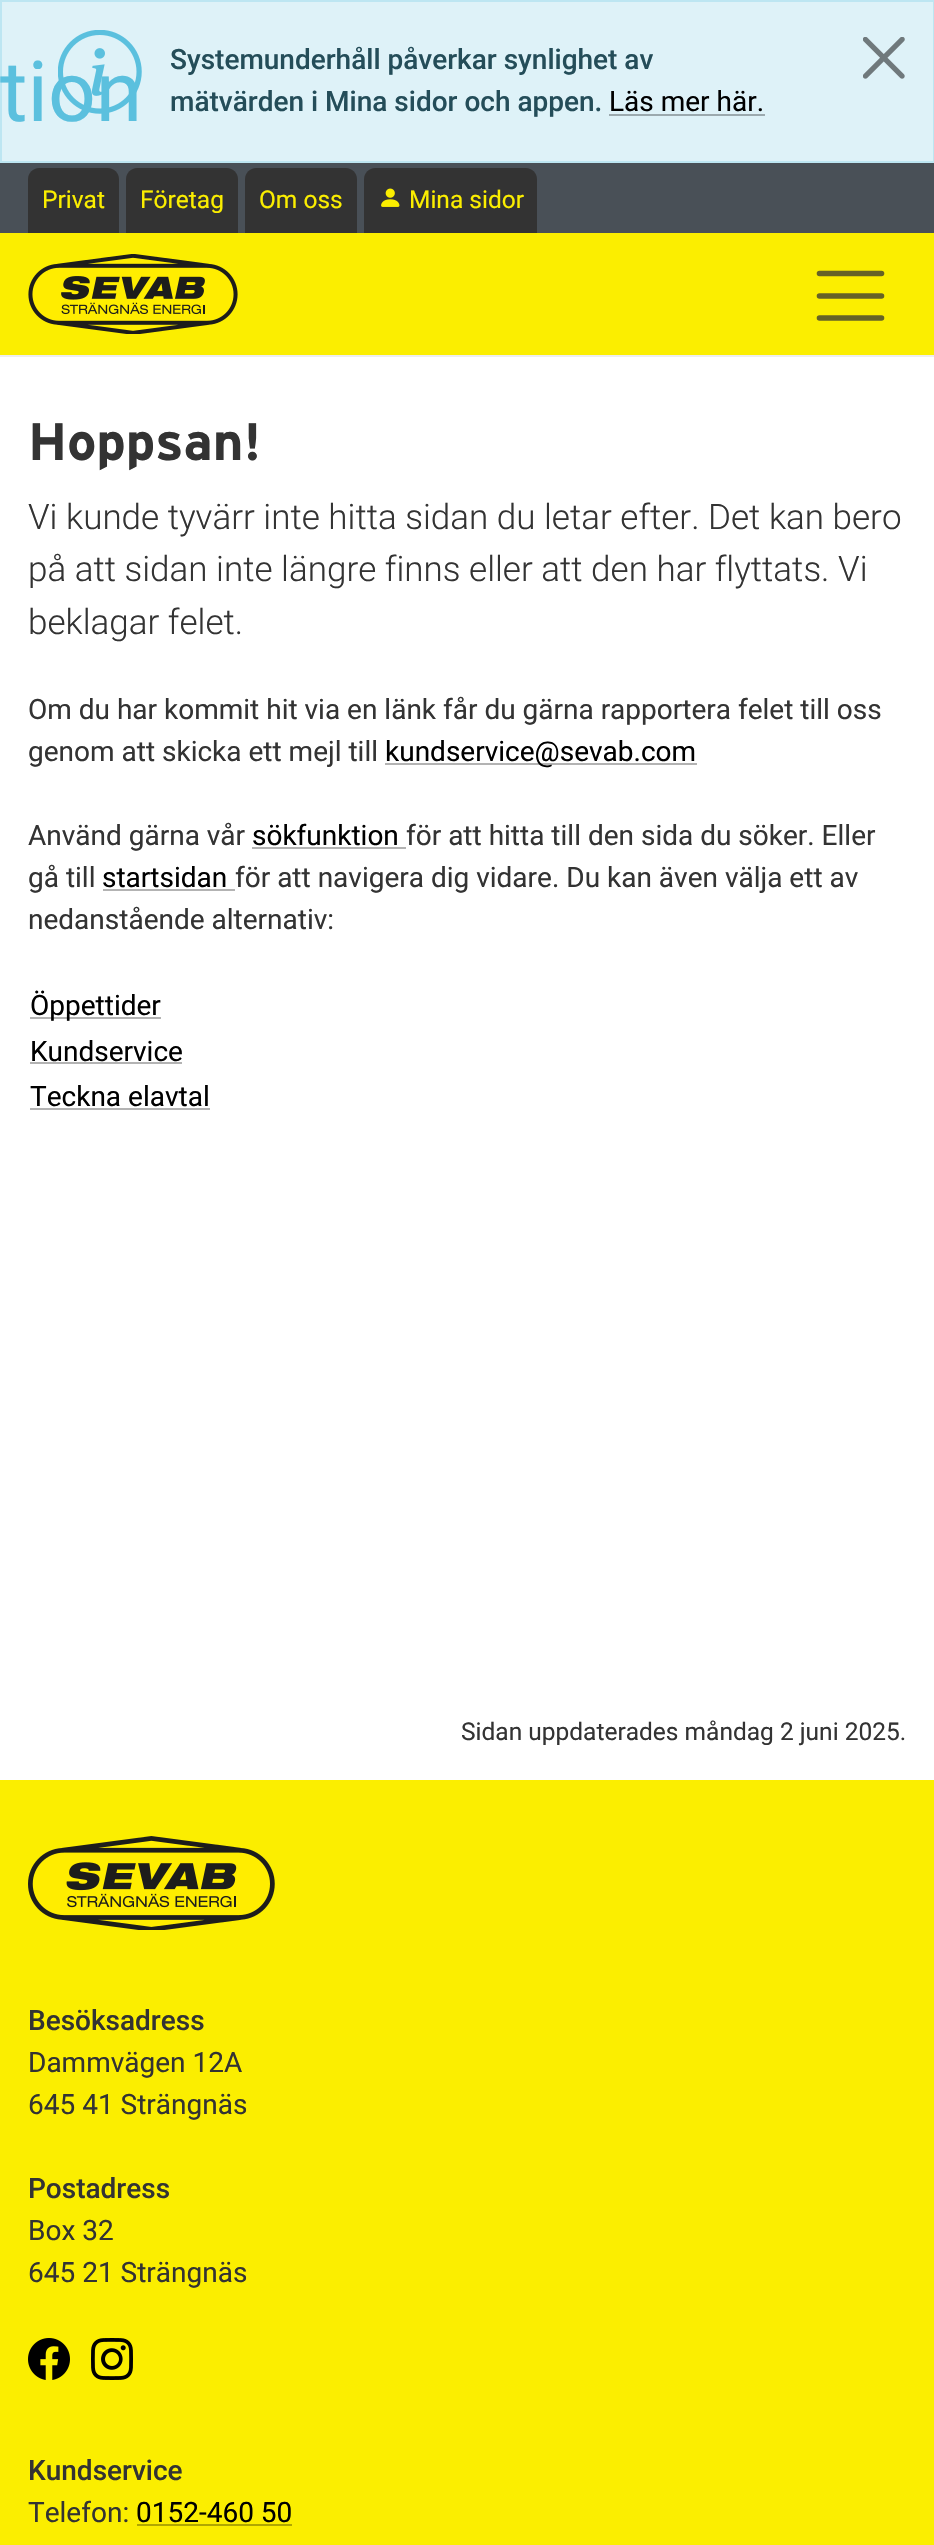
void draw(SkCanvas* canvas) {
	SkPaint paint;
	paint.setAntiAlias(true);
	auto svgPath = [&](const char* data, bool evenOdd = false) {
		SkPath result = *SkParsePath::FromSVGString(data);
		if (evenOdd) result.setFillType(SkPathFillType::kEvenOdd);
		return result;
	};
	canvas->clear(0xffffffff);
	paint.setColor(0xffeeeeee);
	canvas->drawRect(SkRect::MakeXYWH(0, 355, 934, 2), paint);
	paint.setColor(0xffdef2f8);
	canvas->drawRect(SkRect::MakeXYWH(1, 1, 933, 161), paint);
	paint.setStroke(true);
	paint.setStrokeWidth(2);
	paint.setColor(0xffbde6f2);
	canvas->drawRect(SkRect::MakeXYWH(1, 1, 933, 161), paint);
	canvas->drawImageRect(SkImages::DeferredFromEncodedData(SkData::MakeFromFileName("img1.png")), SkRect::MakeXYWH(58, 30, 84, 84), SkSamplingOptions());
	SkFont f1(fontMgr->matchFamilyStyle("Roboto", SkFontStyle::Normal()), 84);
	f1.setSubpixel(true);
	paint.setStroke(false);
	paint.setColor(0xff5bc0de);
	canvas->drawString("tion", 0, 121, f1, paint);
	SkFont f2(fontMgr->matchFamilyStyle("Roboto", SkFontStyle(500, SkFontStyle::kNormal_Width, SkFontStyle::kUpright_Slant)), 28);
	f2.setSubpixel(true);
	paint.setColor(0xff244d59);
	canvas->drawString("Systemunderhåll påverkar synlighet av", 170, 69, f2, paint);
	canvas->drawString("mätvärden i Mina sidor och appen.", 170, 111, f2, paint);
	SkFont f3(fontMgr->matchFamilyStyle("Roboto", SkFontStyle::Normal()), 28);
	f3.setSubpixel(true);
	paint.setColor(0xff000000);
	canvas->drawString("Läs mer här.", 609, 111, f3, paint);
	paint.setColor(0xff9ba9ae);
	canvas->drawRect(SkRect::MakeXYWH(609, 114, 156, 2), paint);
	canvas->drawImageRect(SkImages::DeferredFromEncodedData(SkData::MakeFromFileName("img2.png")), SkRect::MakeXYWH(863, 37, 42, 42), SkSamplingOptions());
	paint.setColor(0xff495057);
	canvas->drawRect(SkRect::MakeXYWH(0, 163, 934, 70), paint);
	paint.setColor(0xff333333);
	canvas->drawPath(svgPath("M39 168H108C114 168 119 173 119 179V233H28V179C28 173 33 168 39 168Z"), paint);
	SkFont f4(fontMgr->matchFamilyStyle("Roboto", SkFontStyle::Normal()), 24.5);
	f4.setSubpixel(true);
	paint.setColor(0xfffbee00);
	canvas->drawString("Privat", 42, 208, f4, paint);
	paint.setColor(0xff333333);
	canvas->drawPath(svgPath("M137 168H227C233 168 238 173 238 179V233H126V179C126 173 131 168 137 168Z"), paint);
	paint.setColor(0xfffbee00);
	canvas->drawString("Företag", 140, 208, f4, paint);
	paint.setColor(0xff333333);
	canvas->drawPath(svgPath("M256 168H346C352 168 357 173 357 179V233H245V179C245 173 250 168 256 168Z"), paint);
	paint.setColor(0xfffbee00);
	canvas->drawString("Om oss", 259, 208, f4, paint);
	paint.setColor(0xff333333);
	canvas->drawPath(svgPath("M375 168H526C532 168 537 173 537 179V233H364V179C364 173 369 168 375 168Z"), paint);
	canvas->drawImageRect(SkImages::DeferredFromEncodedData(SkData::MakeFromFileName("img3.png")), SkRect::MakeXYWH(381, 188, 19, 19), SkSamplingOptions());
	paint.setColor(0xfffbee00);
	canvas->drawString("Mina sidor", 409, 208, f4, paint);
	canvas->drawRect(SkRect::MakeXYWH(0, 233, 934, 122), paint);
	canvas->drawImageRect(SkImages::DeferredFromEncodedData(SkData::MakeFromFileName("img4.png")), SkRect::MakeXYWH(28, 254, 210, 80), SkSamplingOptions());
	paint.setStroke(true);
	paint.setStrokeWidth(5.6);
	paint.setStrokeCap(SkPaint::kRound_Cap);
	paint.setColor(0xff656226);
	canvas->drawPath(svgPath("M819.5 273.5H881.5M819.5 296H881.5M819.5 318H881.5"), paint);
	SkFont f5(fontMgr->matchFamilyStyle("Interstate", SkFontStyle::Bold()), 52.5);
	f5.setSubpixel(true);
	paint.setStroke(false);
	paint.setColor(0xff333333);
	canvas->drawString("Hoppsan!", 28, 460, f5, paint);
	SkFont f6(fontMgr->matchFamilyStyle("Roboto", SkFontStyle(300, SkFontStyle::kNormal_Width, SkFontStyle::kUpright_Slant)), 35);
	f6.setSubpixel(true);
	canvas->drawString("Vi kunde tyvärr inte hitta sidan du letar efter. Det kan bero", 28, 529, f6, paint);
	canvas->drawString("på att sidan inte längre finns eller att den har flyttats. Vi", 28, 581, f6, paint);
	canvas->drawString("beklagar felet.", 28, 634, f6, paint);
	canvas->drawString("Om du har kommit hit via en länk får du gärna rapportera felet till oss", 28, 719, f3, paint);
	canvas->drawString("genom att skicka ett mejl till", 28, 761, f3, paint);
	paint.setColor(0xffb3b3b3);
	canvas->drawRect(SkRect::MakeXYWH(385, 763, 312, 2), paint);
	paint.setColor(0xff000000);
	canvas->drawString("kundservice@sevab.com", 385, 761, f3, paint);
	paint.setColor(0xff333333);
	canvas->drawString("Använd gärna vår", 28, 845, f3, paint);
	paint.setColor(0xff000000);
	canvas->drawString("sökfunktion", 252, 845, f3, paint);
	paint.setColor(0xffb3b3b3);
	canvas->drawRect(SkRect::MakeXYWH(252, 847, 154, 2), paint);
	paint.setColor(0xff333333);
	canvas->drawString("för att hitta till den sida du söker. Eller", 406, 845, f3, paint);
	canvas->drawString("gå till", 28, 887, f3, paint);
	paint.setColor(0xff000000);
	canvas->drawString("startsidan", 102, 887, f3, paint);
	paint.setColor(0xffb3b3b3);
	canvas->drawRect(SkRect::MakeXYWH(103, 889, 132, 2), paint);
	paint.setColor(0xff333333);
	canvas->drawString("för att navigera dig vidare. Du kan även välja ett av", 235, 887, f3, paint);
	canvas->drawString("nedanstående alternativ:", 28, 929, f3, paint);
	paint.setColor(0xffb3b3b3);
	canvas->drawRect(SkRect::MakeXYWH(30, 1017, 131, 2), paint);
	paint.setColor(0xff000000);
	canvas->drawString("Öppettider", 30, 1015, f3, paint);
	canvas->drawString("Kundservice", 30, 1061, f3, paint);
	paint.setColor(0xffb3b3b3);
	canvas->drawRect(SkRect::MakeXYWH(30, 1062, 152, 2), paint);
	paint.setColor(0xff000000);
	canvas->drawString("Teckna elavtal", 30, 1106, f3, paint);
	paint.setColor(0xffb3b3b3);
	canvas->drawRect(SkRect::MakeXYWH(30, 1108, 180, 2), paint);
	paint.setColor(0xff333333);
	canvas->drawString("Sidan uppdaterades måndag 2 juni 2025.", 461, 1740, f4, paint);
	paint.setColor(0xfffbee00);
	canvas->drawRect(SkRect::MakeXYWH(0, 1780, 934, 765), paint);
	canvas->drawImageRect(SkImages::DeferredFromEncodedData(SkData::MakeFromFileName("img5.png")), SkRect::MakeXYWH(28, 1836, 247, 94), SkSamplingOptions());
	paint.setColor(0xff333333);
	canvas->drawString("Besöksadress", 28, 2030, f2, paint);
	canvas->drawString("Dammvägen 12A", 28, 2072, f3, paint);
	canvas->drawString("645 41 Strängnäs", 28, 2114, f3, paint);
	canvas->drawString("Postadress", 28, 2198, f2, paint);
	canvas->drawString("Box 32", 28, 2240, f3, paint);
	canvas->drawString("645 21 Strängnäs", 28, 2282, f3, paint);
	canvas->drawImageRect(SkImages::DeferredFromEncodedData(SkData::MakeFromFileName("img6.png")), SkRect::MakeXYWH(28, 2338, 42, 42), SkSamplingOptions());
	canvas->drawImageRect(SkImages::DeferredFromEncodedData(SkData::MakeFromFileName("img7.png")), SkRect::MakeXYWH(91, 2338, 42, 42), SkSamplingOptions());
	canvas->drawString("Kundservice", 28, 2480, f2, paint);
	canvas->drawString("Telefon:", 28, 2522, f3, paint);
	paint.setColor(0xff000000);
	canvas->drawString("0152-460 50", 136, 2522, f3, paint);
	paint.setColor(0xffb0a700);
	canvas->drawRect(SkRect::MakeXYWH(137, 2524, 155, 2), paint);
}
